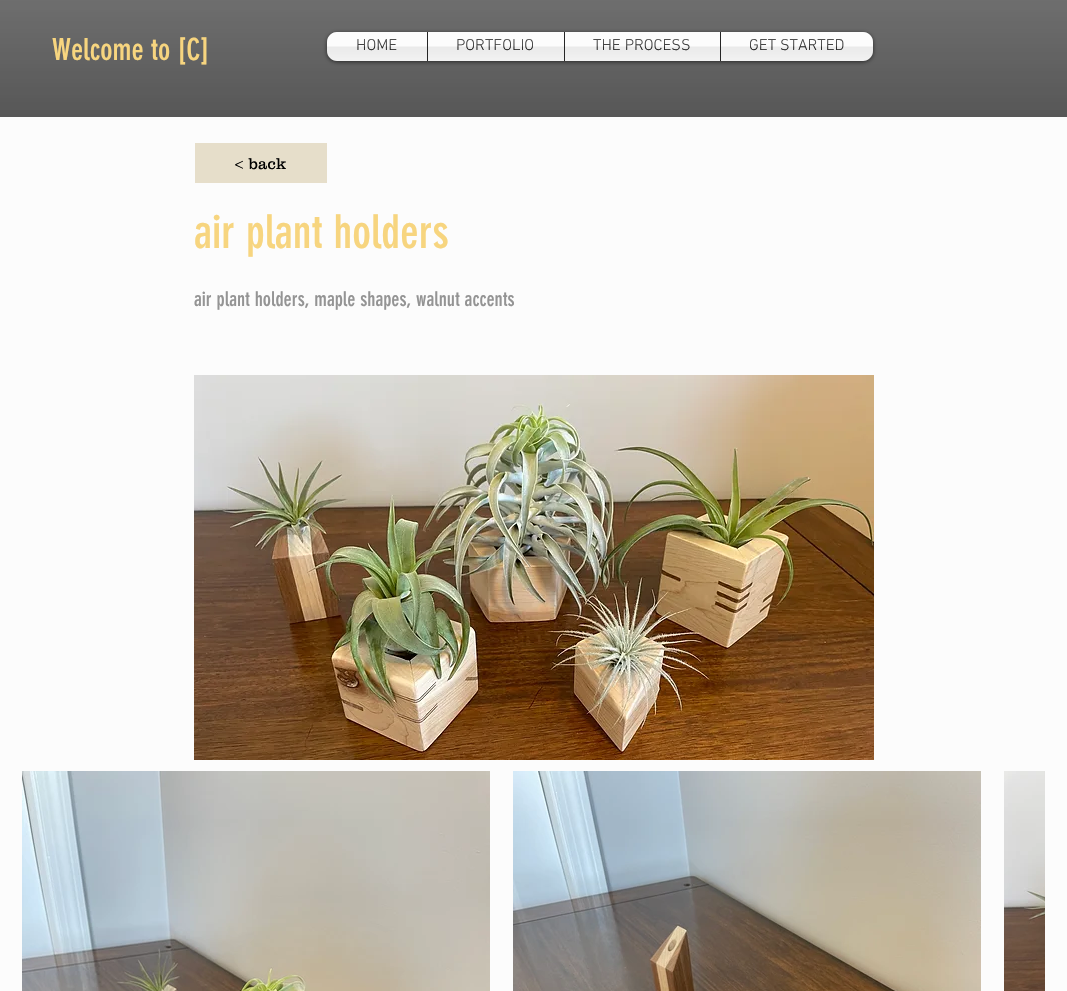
void draw(SkCanvas* canvas) {
	SkPaint paint;
	paint.setAntiAlias(true);
	auto svgPath = [&](const char* data, bool evenOdd = false) {
		SkPath result = *SkParsePath::FromSVGString(data);
		if (evenOdd) result.setFillType(SkPathFillType::kEvenOdd);
		return result;
	};
	canvas->clear(0xfffcfcfc);
	paint.setColor(0xff3b3b3b);
	canvas->drawRect(SkRect::MakeXYWH(0, 0, 1067, 117), paint);
	canvas->drawImageRect(SkImages::DeferredFromEncodedData(SkData::MakeFromFileName("img1.png")), SkRect::MakeXYWH(0, 0, 1067, 117), SkSamplingOptions());
	SkFont f1(fontMgr->matchFamilyStyle("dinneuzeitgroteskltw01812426", SkFontStyle::Normal()), 30);
	f1.setSubpixel(true);
	paint.setColor(0xfff7d57f);
	canvas->drawString("Welcome to [C]", 52, 60, f1, paint);
	paint.setColor(0x99000000);
	paint.setMaskFilter(SkMaskFilter::MakeBlur(kNormal_SkBlurStyle, 2));
	canvas->drawRoundRect(SkRect::MakeXYWH(327, 33, 546, 29), 10, 10, paint);
	paint.setMaskFilter(nullptr);
	canvas->drawImageRect(SkImages::DeferredFromEncodedData(SkData::MakeFromFileName("img2.png")), SkRect::MakeXYWH(327, 32, 546, 29), SkSamplingOptions());
	paint.setColor(0xfffcfcfc);
	canvas->drawPath(svgPath("M337 32H427V61H337C331.5 61 327 56.5 327 51V42C327 36.5 331.5 32 337 32Z"), paint);
	SkFont f2(fontMgr->matchFamilyStyle("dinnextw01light", SkFontStyle(300, SkFontStyle::kNormal_Width, SkFontStyle::kUpright_Slant)), 16);
	f2.setSubpixel(true);
	paint.setColor(0xff262626);
	canvas->drawString("HOME", 356, 50, f2, paint);
	canvas->drawImageRect(SkImages::DeferredFromEncodedData(SkData::MakeFromFileName("img3.png")), SkRect::MakeXYWH(327, 32, 100, 29), SkSamplingOptions());
	paint.setColor(0xfffcfcfc);
	canvas->drawRect(SkRect::MakeXYWH(428, 32, 136, 29), paint);
	paint.setColor(0xff262626);
	canvas->drawRect(SkRect::MakeXYWH(427, 32, 1, 29), paint);
	canvas->drawString("PORTFOLIO", 456, 50, f2, paint);
	canvas->drawImageRect(SkImages::DeferredFromEncodedData(SkData::MakeFromFileName("img4.png")), SkRect::MakeXYWH(428, 39, 136, 22), SkSamplingOptions());
	paint.setColor(0xfffcfcfc);
	canvas->drawRect(SkRect::MakeXYWH(565, 32, 155, 29), paint);
	paint.setColor(0xff262626);
	canvas->drawRect(SkRect::MakeXYWH(564, 32, 1, 29), paint);
	canvas->drawString("THE PROCESS", 593, 50, f2, paint);
	canvas->drawImageRect(SkImages::DeferredFromEncodedData(SkData::MakeFromFileName("img5.png")), SkRect::MakeXYWH(565, 39, 155, 22), SkSamplingOptions());
	paint.setColor(0xfffcfcfc);
	canvas->drawPath(svgPath("M720 32H863C868.5 32 873 36.5 873 42V51C873 56.5 868.5 61 863 61H720Z"), paint);
	paint.setColor(0xff262626);
	canvas->drawRect(SkRect::MakeXYWH(720, 32, 1, 29), paint);
	canvas->drawString("GET STARTED", 749, 50, f2, paint);
	canvas->drawImageRect(SkImages::DeferredFromEncodedData(SkData::MakeFromFileName("img6.png")), SkRect::MakeXYWH(721, 32, 152, 29), SkSamplingOptions());
	paint.setColor(0xffe6deca);
	canvas->drawRect(SkRect::MakeXYWH(195, 143, 132, 40), paint);
	SkFont f3(fontMgr->matchFamilyStyle("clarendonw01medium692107", SkFontStyle(300, SkFontStyle::kNormal_Width, SkFontStyle::kUpright_Slant)), 16);
	f3.setSubpixel(true);
	paint.setColor(0xff000000);
	canvas->drawString("< back", 234, 169, f3, paint);
	SkFont f4(fontMgr->matchFamilyStyle("dinneuzeitgroteskltw01812426", SkFontStyle::Normal()), 46);
	f4.setSubpixel(true);
	paint.setColor(0xfff7d57f);
	canvas->drawString("air plant holders", 194, 248, f4, paint);
	SkFont f5(fontMgr->matchFamilyStyle("dinneuzeitgroteskltw01812426", SkFontStyle::Normal()), 20);
	f5.setSubpixel(true);
	paint.setColor(0xff949494);
	canvas->drawString("air plant holders, maple shapes, walnut accents", 194, 306, f5, paint);
	canvas->drawImageRect(SkImages::DeferredFromEncodedData(SkData::MakeFromFileName("img7.png")), SkRect::MakeXYWH(194, 375, 680, 385), SkSamplingOptions());
	canvas->drawImageRect(SkImages::DeferredFromEncodedData(SkData::MakeFromFileName("img8.png")), SkRect::MakeXYWH(22, 771, 468, 220), SkSamplingOptions());
	canvas->drawImageRect(SkImages::DeferredFromEncodedData(SkData::MakeFromFileName("img9.png")), SkRect::MakeXYWH(513, 771, 468, 220), SkSamplingOptions());
	canvas->drawImageRect(SkImages::DeferredFromEncodedData(SkData::MakeFromFileName("img10.png")), SkRect::MakeXYWH(1004, 771, 41, 220), SkSamplingOptions());
}
